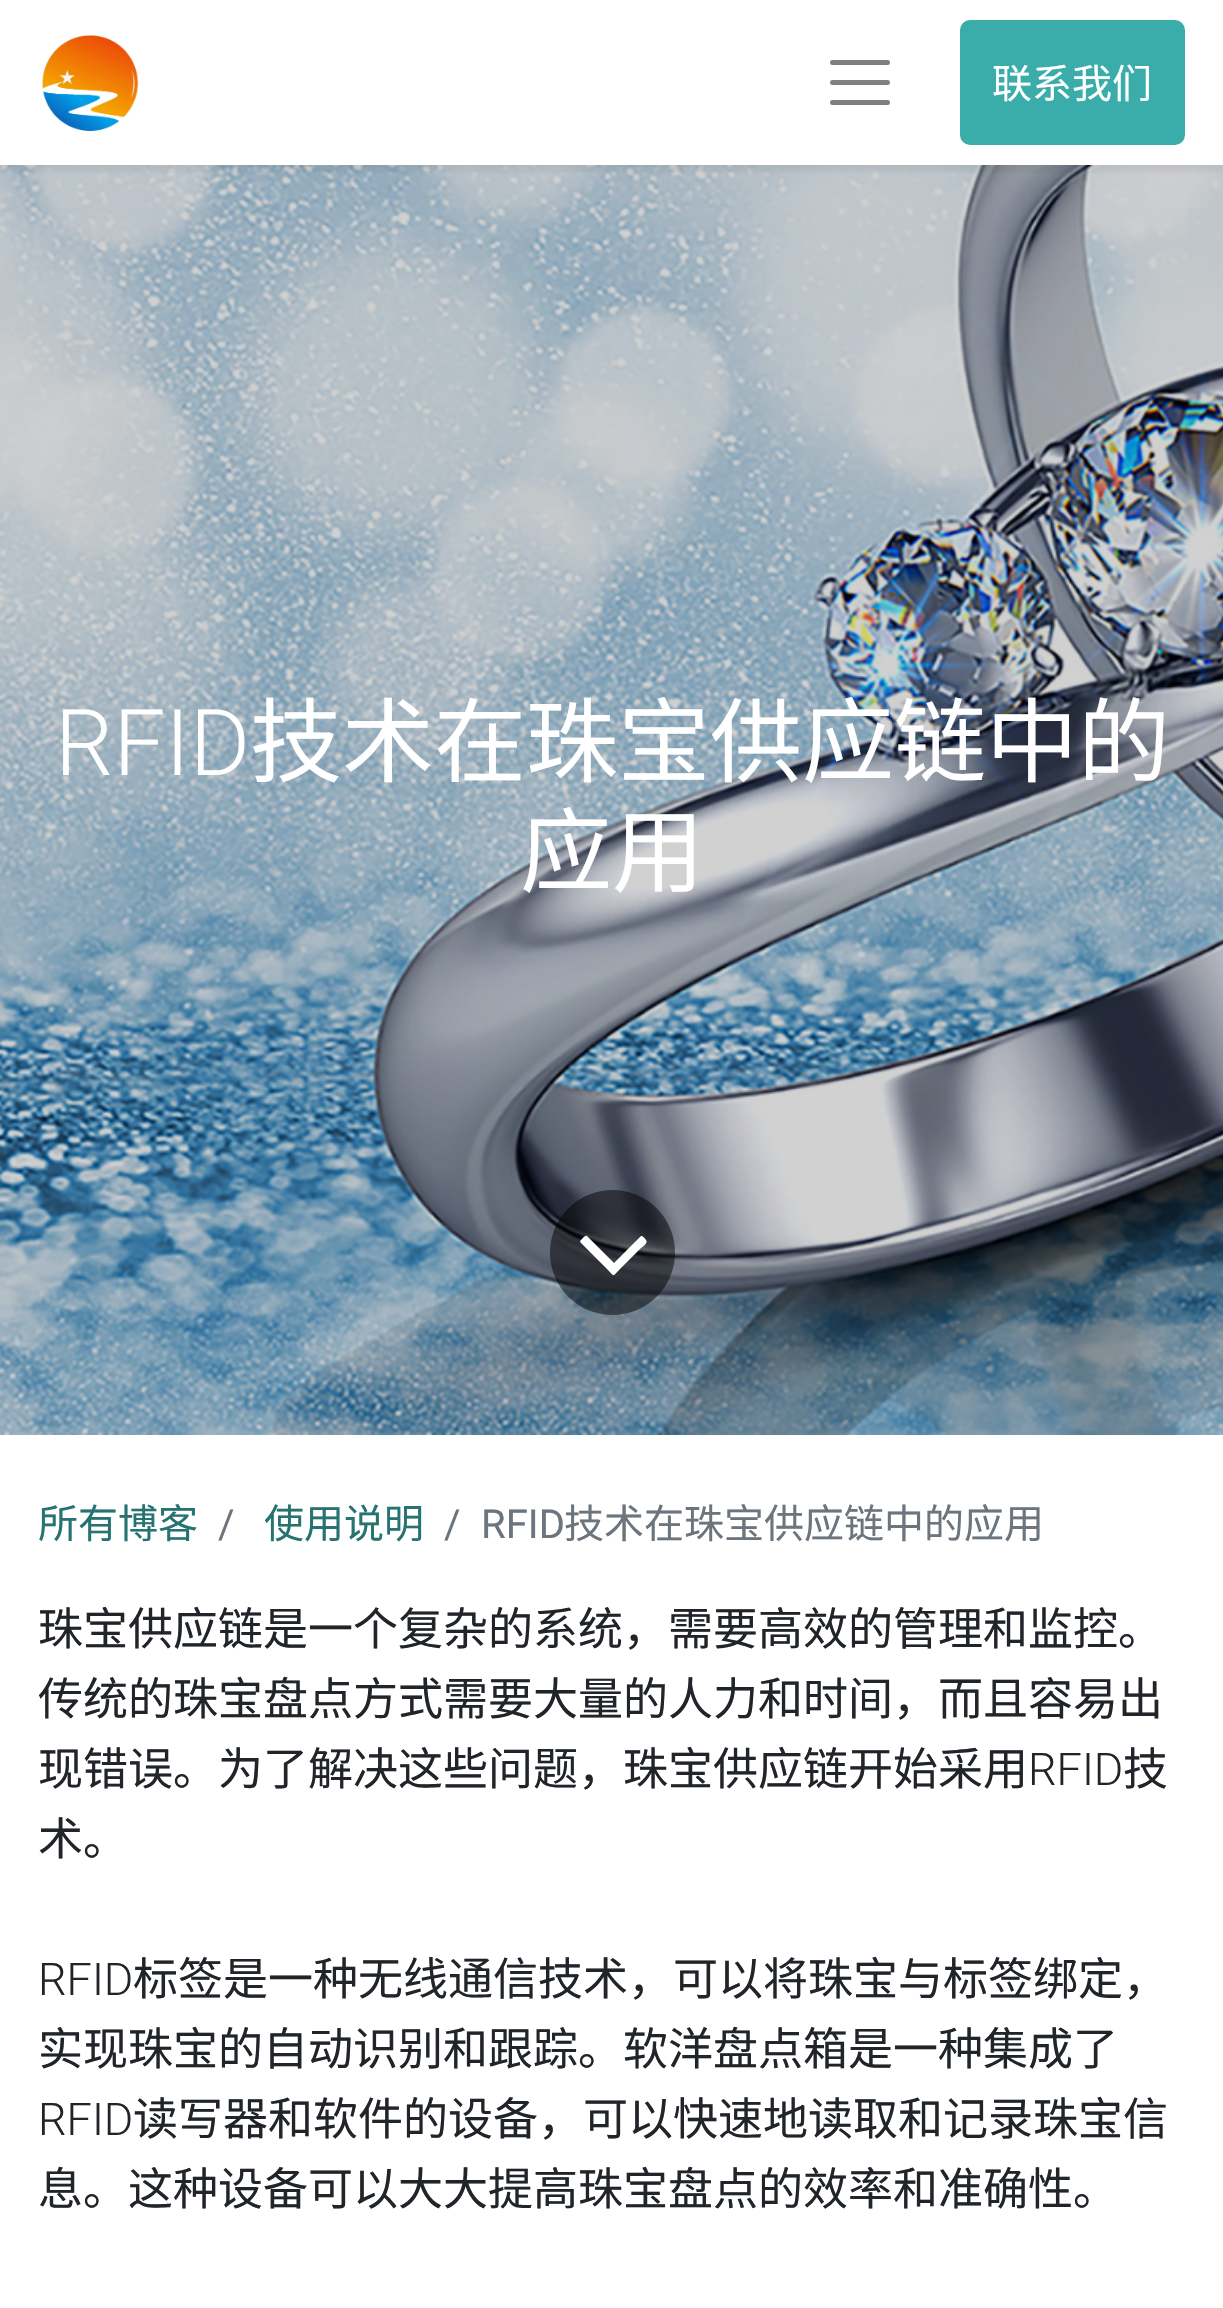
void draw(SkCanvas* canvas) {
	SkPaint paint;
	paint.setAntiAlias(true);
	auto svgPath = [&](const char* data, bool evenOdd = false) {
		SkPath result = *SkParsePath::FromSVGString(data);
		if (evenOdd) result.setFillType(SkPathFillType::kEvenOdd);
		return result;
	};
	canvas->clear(0xffffffff);
	canvas->drawImageRect(SkImages::DeferredFromEncodedData(SkData::MakeFromFileName("img2.png")), SkRect::MakeXYWH(0, 165, 1223, 1270), SkSamplingOptions());
	canvas->save();
	canvas->clipRect(SkRect::MakeXYWH(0, 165, 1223, 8));
	paint.setColor(0x12000000);
	paint.setMaskFilter(SkMaskFilter::MakeBlur(kNormal_SkBlurStyle, 5));
	canvas->drawRect(SkRect::MakeXYWH(0, 5, 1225, 165), paint);
	paint.setMaskFilter(nullptr);
	canvas->restore();
	canvas->drawImageRect(SkImages::DeferredFromEncodedData(SkData::MakeFromFileName("img1.png")), SkRect::MakeXYWH(42, 35, 97, 97), SkSamplingOptions());
	paint.setStroke(true);
	paint.setStrokeWidth(5);
	paint.setStrokeCap(SkPaint::kRound_Cap);
	paint.setColor(0xff808080);
	canvas->drawPath(svgPath("M832.5 62.5H887.5M832.5 82.5H887.5M832.5 102.5H887.5"), paint);
	paint.setStroke(false);
	paint.setColor(0xff3aadaa);
	canvas->drawRoundRect(SkRect::MakeXYWH(961.5, 21.5, 222, 122), 8.5, 8.5, paint);
	paint.setStroke(true);
	paint.setStrokeWidth(3);
	paint.setStrokeCap(SkPaint::kButt_Cap);
	canvas->drawRoundRect(SkRect::MakeXYWH(961.5, 21.5, 222, 122), 8.5, 8.5, paint);
	SkFont f1(fontMgr->matchFamilyStyle("Noto Sans CJK SC", SkFontStyle::Normal()), 40);
	f1.setSubpixel(true);
	paint.setStroke(false);
	paint.setColor(0xffffffff);
	canvas->drawString("联系我们", 992, 98, f1, paint);
	SkFont f2(fontMgr->matchFamilyStyle("Roboto", SkFontStyle(300, SkFontStyle::kNormal_Width, SkFontStyle::kUpright_Slant)), 92);
	f2.setSubpixel(true);
	canvas->drawString("RFID", 55, 775, f2, paint);
	SkFont f3(fontMgr->matchFamilyStyle("Noto Sans CJK SC", SkFontStyle::Normal()), 92);
	f3.setSubpixel(true);
	canvas->drawString("技术在珠宝供应链中的", 250, 775, f3, paint);
	canvas->drawString("应用", 520, 885, f3, paint);
	paint.setColor(0x80000000);
	canvas->drawCircle(612.5, 1252.5, 62.5, paint);
	paint.setColor(0xffffffff);
	canvas->drawPath(svgPath("M646 1240C649 1243 641 1248 641 1248L620 1269C612 1277 615 1277 607 1269L581 1243C579 1241 581 1240 582 1239C583 1238 585 1235 587 1236L614 1263L640 1237C642 1234 645 1239 646 1240Z"), paint);
	paint.setColor(0xff267372);
	canvas->drawString("所有博客", 38, 1538, f1, paint);
	SkFont f4(fontMgr->matchFamilyStyle("Roboto", SkFontStyle::Normal()), 40);
	f4.setSubpixel(true);
	paint.setColor(0xff6c757d);
	canvas->drawString("/", 218, 1538, f4, paint);
	paint.setColor(0xff267372);
	canvas->drawString("使用说明", 264, 1538, f1, paint);
	paint.setColor(0xff6c757d);
	canvas->drawString("/", 444, 1538, f4, paint);
	canvas->drawString("RFID", 481, 1538, f4, paint);
	canvas->drawString("技术在珠宝供应链中的应用", 564, 1538, f1, paint);
	SkFont f5(fontMgr->matchFamilyStyle("Noto Sans CJK SC", SkFontStyle::Normal()), 45);
	f5.setSubpixel(true);
	paint.setColor(0xff212529);
	canvas->drawString("珠宝供应链是一个复杂的系统，需要高效的管理和监控。", 38, 1645, f5, paint);
	canvas->drawString("传统的珠宝盘点方式需要大量的人力和时间，而且容易出", 38, 1715, f5, paint);
	canvas->drawString("现错误。为了解决这些问题，珠宝供应链开始采用", 38, 1785, f5, paint);
	SkFont f6(fontMgr->matchFamilyStyle("Roboto", SkFontStyle(300, SkFontStyle::kNormal_Width, SkFontStyle::kUpright_Slant)), 45);
	f6.setSubpixel(true);
	canvas->drawString("RFID", 1028, 1785, f6, paint);
	canvas->drawString("技", 1123, 1785, f5, paint);
	canvas->drawString("术。", 38, 1855, f5, paint);
	canvas->drawString("RFID", 38, 1995, f6, paint);
	canvas->drawString("标签是一种无线通信技术，可以将珠宝与标签绑定，", 133, 1995, f5, paint);
	canvas->drawString("实现珠宝的自动识别和跟踪。软洋盘点箱是一种集成了", 38, 2065, f5, paint);
	canvas->drawString("RFID", 38, 2135, f6, paint);
	canvas->drawString("读写器和软件的设备，可以快速地读取和记录珠宝信", 133, 2135, f5, paint);
	canvas->drawString("息。这种设备可以大大提高珠宝盘点的效率和准确性。", 38, 2205, f5, paint);
}
